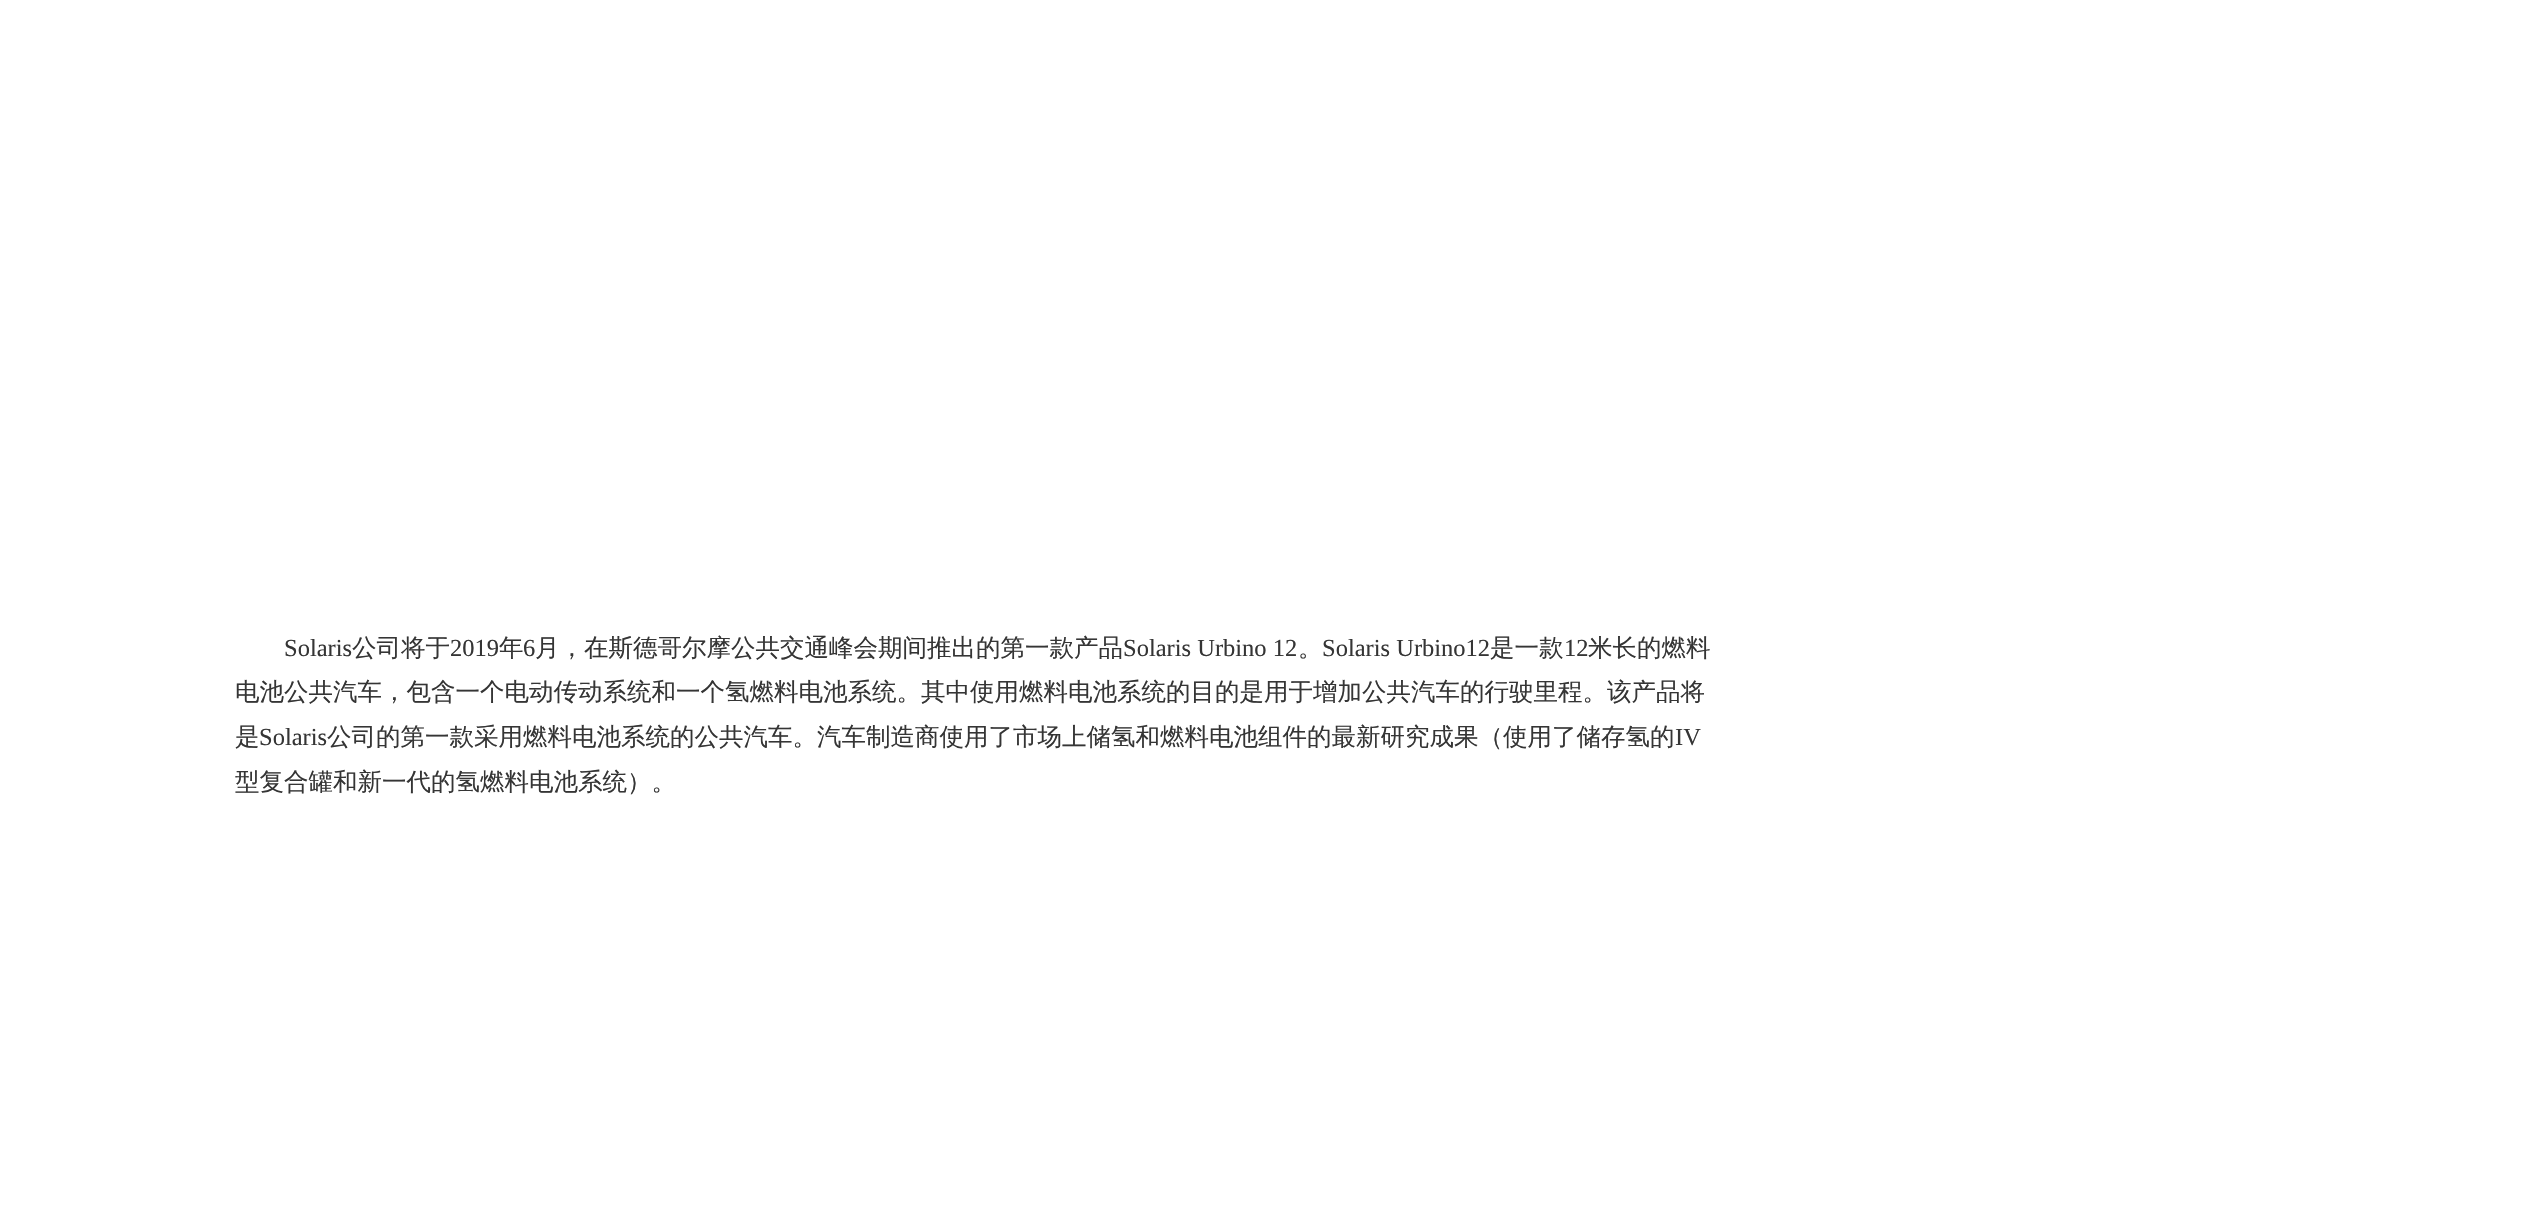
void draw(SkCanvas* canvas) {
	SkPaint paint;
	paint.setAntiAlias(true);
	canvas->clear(0xffffffff);
	SkFont f1(fontMgr->matchFamilyStyle("Liberation Serif", SkFontStyle::Normal()), 24.5);
	f1.setSubpixel(true);
	paint.setColor(0xff353535);
	canvas->drawString("Solaris", 284, 656, f1, paint);
	SkFont f2(fontMgr->matchFamilyStyle("WenQuanYi Zen Hei", SkFontStyle(500, SkFontStyle::kNormal_Width, SkFontStyle::kUpright_Slant)), 24.5);
	f2.setSubpixel(true);
	canvas->drawString("公司将于", 352, 656, f2, paint);
	canvas->drawString("2019", 450, 656, f1, paint);
	canvas->drawString("年", 499, 656, f2, paint);
	canvas->drawString("6", 523, 656, f1, paint);
	canvas->drawString("月，在斯德哥尔摩公共交通峰会期间推出的第一款产品", 535, 656, f2, paint);
	canvas->drawString("Solaris Urbino 12", 1123, 656, f1, paint);
	canvas->drawString("。", 1298, 656, f2, paint);
	canvas->drawString("Solaris Urbino12", 1322, 656, f1, paint);
	canvas->drawString("是一款", 1490, 656, f2, paint);
	canvas->drawString("12", 1564, 656, f1, paint);
	canvas->drawString("米长的燃料", 1588, 656, f2, paint);
	canvas->drawString("电池公共汽车，包含一个电动传动系统和一个氢燃料电池系统。其中使用燃料电池系统的目的是用于增加公共汽车的行驶里程。该产品将", 235, 700, f2, paint);
	canvas->drawString("是", 235, 745, f2, paint);
	canvas->drawString("Solaris", 259, 745, f1, paint);
	canvas->drawString("公司的第一款采用燃料电池系统的公共汽车。汽车制造商使用了市场上储氢和燃料电池组件的最新研究成果（使用了储存氢的", 327, 745, f2, paint);
	canvas->drawString("IV", 1675, 745, f1, paint);
	canvas->drawString("型复合罐和新一代的氢燃料电池系统）。", 235, 790, f2, paint);
}
